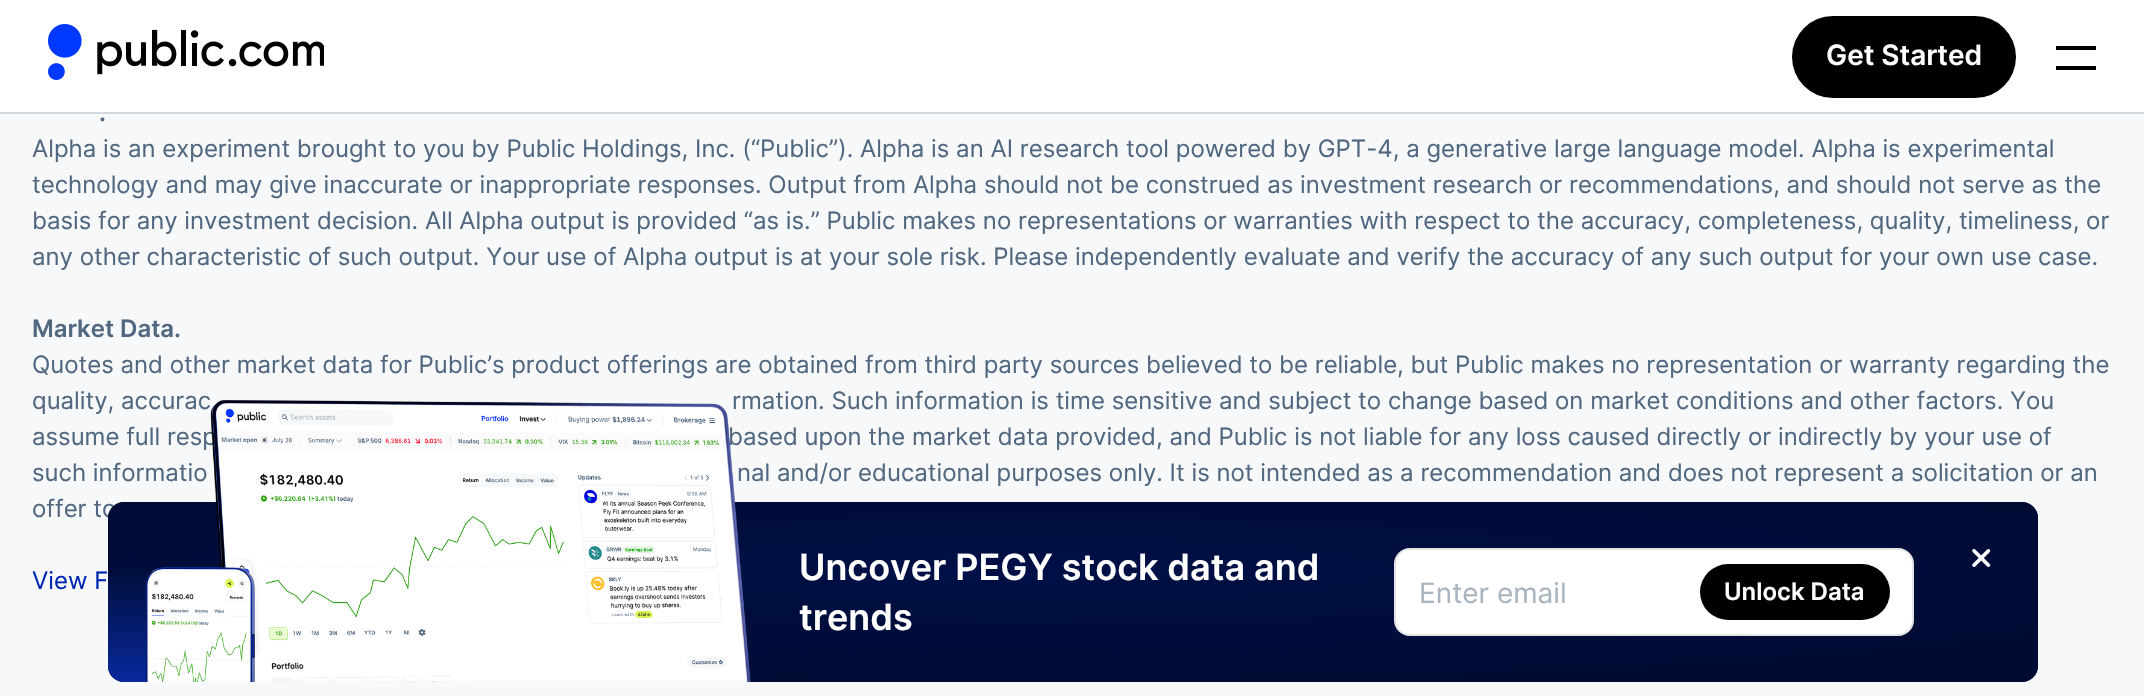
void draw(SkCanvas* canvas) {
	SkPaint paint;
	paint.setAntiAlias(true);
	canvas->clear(0xfff6f8f9);
	paint.setColor(0xffffffff);
	canvas->drawRect(SkRect::MakeXYWH(0, 0, 2144, 112), paint);
	paint.setColor(0xffd4d9df);
	canvas->drawRect(SkRect::MakeXYWH(0, 112, 2144, 2), paint);
	canvas->drawImageRect(SkImages::DeferredFromEncodedData(SkData::MakeFromFileName("img1.png")), SkRect::MakeXYWH(48, 24, 34, 56), SkSamplingOptions());
	canvas->drawImageRect(SkImages::DeferredFromEncodedData(SkData::MakeFromFileName("img2.png")), SkRect::MakeXYWH(97, 29, 227, 46), SkSamplingOptions());
	paint.setColor(0xff000000);
	canvas->drawRoundRect(SkRect::MakeXYWH(1792, 16, 224, 82), 41, 41, paint);
	SkFont f1(fontMgr->matchFamilyStyle("Inter", SkFontStyle(600, SkFontStyle::kNormal_Width, SkFontStyle::kUpright_Slant)), 28);
	f1.setSubpixel(true);
	paint.setColor(0xffffffff);
	canvas->drawString("Get Started", 1826, 65, f1, paint);
	paint.setColor(0xff000000);
	canvas->drawRect(SkRect::MakeXYWH(2056, 46, 40, 4), paint);
	canvas->drawRect(SkRect::MakeXYWH(2056, 66, 40, 4), paint);
	SkFont f2(fontMgr->matchFamilyStyle("Inter", SkFontStyle(600, SkFontStyle::kNormal_Width, SkFontStyle::kUpright_Slant)), 24);
	f2.setSubpixel(true);
	paint.setColor(0xff516880);
	canvas->drawString(".", 99, 121, f2, paint);
	SkFont f3(fontMgr->matchFamilyStyle("Inter", SkFontStyle::Normal()), 24);
	f3.setSubpixel(true);
	canvas->drawString("Alpha is an experiment brought to you by Public Holdings, Inc. (“Public”). Alpha is an AI research tool powered by GPT-4, a generative large language model. Alpha is experimental", 32, 157, f3, paint);
	canvas->drawString("technology and may give inaccurate or inappropriate responses. Output from Alpha should not be construed as investment research or recommendations, and should not serve as the", 32, 193, f3, paint);
	canvas->drawString("basis for any investment decision. All Alpha output is provided “as is.” Public makes no representations or warranties with respect to the accuracy, completeness, quality, timeliness, or", 32, 229, f3, paint);
	canvas->drawString("any other characteristic of such output. Your use of Alpha output is at your sole risk. Please independently evaluate and verify the accuracy of any such output for your own use case.", 32, 265, f3, paint);
	canvas->drawString("Market Data.", 32, 337, f2, paint);
	canvas->drawString("Quotes and other market data for Public’s product offerings are obtained from third party sources believed to be reliable, but Public makes no representation or warranty regarding the", 32, 373, f3, paint);
	canvas->drawString("quality, accurac", 32, 409, f3, paint);
	canvas->drawString("rmation. Such information is time sensitive and subject to change based on market conditions and other factors. You", 732, 409, f3, paint);
	canvas->drawString("assume full resp", 32, 445, f3, paint);
	canvas->drawString("based upon the market data provided, and Public is not liable for any loss caused directly or indirectly by your use of", 728, 445, f3, paint);
	canvas->drawString("such informatio", 32, 481, f3, paint);
	canvas->drawString("nal and/or educational purposes only. It is not intended as a recommendation and does not represent a solicitation or an", 737, 481, f3, paint);
	canvas->drawString("offer to", 32, 517, f3, paint);
	paint.setColor(0xff0027b3);
	canvas->drawString("View F", 32, 589, f3, paint);
	{
		const SkColor colors[] = {0xff00145d, 0xff000000};
		const float stops[] = {0, 1};
		SkMatrix m = SkMatrix::Translate(1022, 570).preScale(1246, 113);
		paint.setShader(SkGradientShader::MakeRadial({0, 0}, 1, colors, stops, 2, SkTileMode::kClamp, 0, &m));
		paint.setAlpha(255);
	}
	canvas->drawRoundRect(SkRect::MakeXYWH(108, 502, 1930, 180), 16, 16, paint);
	paint.setShader(nullptr);
	paint.setColor(0xcc000e40);
	canvas->drawRoundRect(SkRect::MakeXYWH(108, 502, 1930, 180), 16, 16, paint);
	{
		const SkColor colors[] = {0xff09299d, 0x0009299d};
		const float stops[] = {0, 1};
		SkMatrix m = SkMatrix::Translate(129, 682).preScale(646, 116);
		paint.setShader(SkGradientShader::MakeRadial({0, 0}, 1, colors, stops, 2, SkTileMode::kClamp, 0, &m));
		paint.setAlpha(255);
	}
	canvas->drawRoundRect(SkRect::MakeXYWH(108, 502, 1930, 180), 16, 16, paint);
	canvas->drawImageRect(SkImages::DeferredFromEncodedData(SkData::MakeFromFileName("img3.png")), SkRect::MakeXYWH(145, 400, 606, 282), SkSamplingOptions());
	SkFont f4(fontMgr->matchFamilyStyle("Inter", SkFontStyle(600, SkFontStyle::kNormal_Width, SkFontStyle::kUpright_Slant)), 36);
	f4.setSubpixel(true);
	paint.setShader(nullptr);
	paint.setColor(0xffffffff);
	canvas->drawString("Uncover PEGY stock data and", 799, 580, f4, paint);
	canvas->drawString("trends", 799, 630, f4, paint);
	canvas->drawRoundRect(SkRect::MakeXYWH(1394, 548, 520, 88), 16, 16, paint);
	paint.setStroke(true);
	paint.setStrokeWidth(2);
	paint.setColor(0x33787878);
	canvas->drawRoundRect(SkRect::MakeXYWH(1395, 549, 518, 86), 15, 15, paint);
	SkFont f5(fontMgr->matchFamilyStyle("Inter", SkFontStyle::Normal()), 28);
	f5.setSubpixel(true);
	paint.setStroke(false);
	paint.setColor(0xffa8b4bf);
	canvas->drawString("Enter email", 1419, 603, f5, paint);
	paint.setColor(0xff000000);
	canvas->drawRoundRect(SkRect::MakeXYWH(1700, 564, 190, 56), 28, 28, paint);
	paint.setColor(0xffffffff);
	canvas->drawString("Unlock Data", 1724, 600, f2, paint);
	canvas->drawImageRect(SkImages::DeferredFromEncodedData(SkData::MakeFromFileName("img4.png")), SkRect::MakeXYWH(1972, 549, 19, 18), SkSamplingOptions());
}
